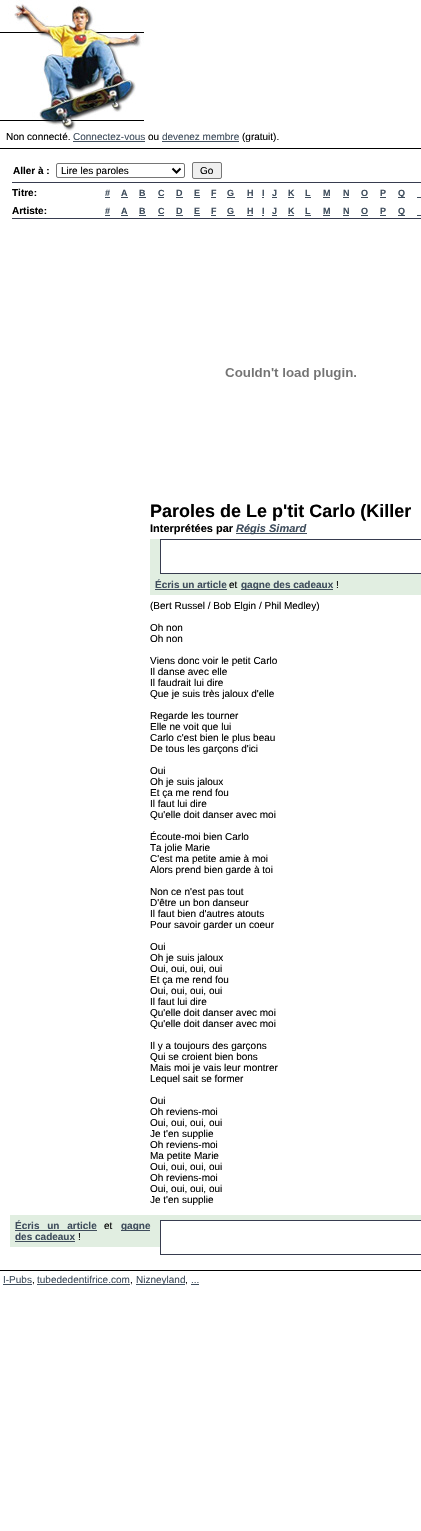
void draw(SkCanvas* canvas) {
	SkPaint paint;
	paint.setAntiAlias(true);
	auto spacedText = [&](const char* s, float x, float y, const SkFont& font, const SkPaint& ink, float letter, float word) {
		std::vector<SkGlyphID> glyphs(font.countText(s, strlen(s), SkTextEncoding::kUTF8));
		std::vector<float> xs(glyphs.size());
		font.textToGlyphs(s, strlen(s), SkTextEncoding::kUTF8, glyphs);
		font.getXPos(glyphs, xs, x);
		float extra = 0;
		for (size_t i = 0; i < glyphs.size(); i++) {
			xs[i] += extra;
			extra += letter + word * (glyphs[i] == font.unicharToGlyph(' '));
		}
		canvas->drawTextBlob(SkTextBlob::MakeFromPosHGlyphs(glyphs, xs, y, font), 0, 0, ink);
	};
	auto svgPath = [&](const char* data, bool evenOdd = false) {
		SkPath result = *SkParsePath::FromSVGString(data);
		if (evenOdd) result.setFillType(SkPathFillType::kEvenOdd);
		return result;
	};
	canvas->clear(0xffffffff);
	canvas->drawImageRect(SkImages::DeferredFromEncodedData(SkData::MakeFromFileName("img1.png")), SkRect::MakeXYWH(0, 0, 144, 131), SkSamplingOptions());
	SkFont f1(fontMgr->matchFamilyStyle("Liberation Sans", SkFontStyle::Normal()), 10);
	f1.setSubpixel(true);
	paint.setColor(0xff000000);
	canvas->drawString("Non connecté.", 6, 140, f1, paint);
	paint.setColor(0xff3f4d5c);
	canvas->drawString("Connectez-vous", 73, 140, f1, paint);
	canvas->drawRect(SkRect::MakeXYWH(73, 141, 72, 1), paint);
	paint.setColor(0xff000000);
	canvas->drawString("ou", 148, 140, f1, paint);
	paint.setColor(0xff3f4d5c);
	canvas->drawString("devenez membre", 162, 140, f1, paint);
	canvas->drawRect(SkRect::MakeXYWH(162, 141, 77, 1), paint);
	paint.setColor(0xff000000);
	canvas->drawString("(gratuit).", 242, 140, f1, paint);
	canvas->drawRect(SkRect::MakeXYWH(0, 148, 421, 1), paint);
	SkFont f2(fontMgr->matchFamilyStyle("Liberation Sans", SkFontStyle::Bold()), 10);
	f2.setSubpixel(true);
	canvas->drawString("Aller à :", 13, 174, f2, paint);
	paint.setStroke(true);
	paint.setStrokeWidth(1);
	paint.setColor(0xff767676);
	canvas->drawRoundRect(SkRect::MakeXYWH(56.5, 163.5, 128, 14), 1.5, 1.5, paint);
	paint.setStrokeWidth(2);
	paint.setColor(0xff000000);
	canvas->drawPath(svgPath("M172.5 168.5L176.5 172.5L180.5 168.5"), paint);
	paint.setStroke(false);
	canvas->drawString("Lire les paroles", 61, 174, f1, paint);
	paint.setColor(0xffefefef);
	canvas->drawRoundRect(SkRect::MakeXYWH(192.5, 162.5, 29, 16), 1.5, 1.5, paint);
	paint.setStroke(true);
	paint.setStrokeWidth(1);
	paint.setColor(0xff767676);
	canvas->drawRoundRect(SkRect::MakeXYWH(192.5, 162.5, 29, 16), 1.5, 1.5, paint);
	paint.setStroke(false);
	paint.setColor(0xff000000);
	canvas->drawString("Go", 200, 174, f1, paint);
	paint.setColor(0xff373c4f);
	canvas->drawRect(SkRect::MakeXYWH(12, 182, 409, 1), paint);
	paint.setColor(0xff000000);
	canvas->drawString("Titre:", 12, 196, f2, paint);
	SkFont f3(fontMgr->matchFamilyStyle("Liberation Sans", SkFontStyle::Bold()), 9);
	f3.setSubpixel(true);
	paint.setColor(0xff3f4d5c);
	canvas->drawString("#", 105, 196, f3, paint);
	canvas->drawRect(SkRect::MakeXYWH(105, 197, 5, 1), paint);
	canvas->drawString("A", 121, 196, f3, paint);
	canvas->drawRect(SkRect::MakeXYWH(121, 197, 7, 1), paint);
	canvas->drawString("B", 139, 196, f3, paint);
	canvas->drawRect(SkRect::MakeXYWH(139, 197, 7, 1), paint);
	canvas->drawString("C", 158, 196, f3, paint);
	canvas->drawRect(SkRect::MakeXYWH(158, 197, 6, 1), paint);
	canvas->drawString("D", 176, 196, f3, paint);
	canvas->drawRect(SkRect::MakeXYWH(176, 197, 7, 1), paint);
	canvas->drawString("E", 194, 196, f3, paint);
	canvas->drawRect(SkRect::MakeXYWH(194, 197, 6, 1), paint);
	canvas->drawString("F", 211, 196, f3, paint);
	canvas->drawRect(SkRect::MakeXYWH(211, 197, 5, 1), paint);
	canvas->drawString("G", 227, 196, f3, paint);
	canvas->drawRect(SkRect::MakeXYWH(227, 197, 8, 1), paint);
	canvas->drawString("H", 247, 196, f3, paint);
	canvas->drawRect(SkRect::MakeXYWH(247, 197, 6, 1), paint);
	canvas->drawString("I", 262, 196, f3, paint);
	canvas->drawRect(SkRect::MakeXYWH(262, 197, 2, 1), paint);
	canvas->drawString("J", 272, 196, f3, paint);
	canvas->drawRect(SkRect::MakeXYWH(272, 197, 5, 1), paint);
	canvas->drawString("K", 288, 196, f3, paint);
	canvas->drawRect(SkRect::MakeXYWH(288, 197, 6, 1), paint);
	canvas->drawString("L", 305, 196, f3, paint);
	canvas->drawRect(SkRect::MakeXYWH(305, 197, 6, 1), paint);
	canvas->drawString("M", 323, 196, f3, paint);
	canvas->drawRect(SkRect::MakeXYWH(323, 197, 7, 1), paint);
	canvas->drawString("N", 343, 196, f3, paint);
	canvas->drawRect(SkRect::MakeXYWH(343, 197, 6, 1), paint);
	canvas->drawString("O", 361, 196, f3, paint);
	canvas->drawRect(SkRect::MakeXYWH(361, 197, 7, 1), paint);
	canvas->drawString("P", 380, 196, f3, paint);
	canvas->drawRect(SkRect::MakeXYWH(380, 197, 6, 1), paint);
	canvas->drawRect(SkRect::MakeXYWH(398, 197, 7, 1), paint);
	canvas->drawString("Q", 398, 196, f3, paint);
	canvas->drawRect(SkRect::MakeXYWH(417, 197, 4, 1), paint);
	paint.setColor(0xff000000);
	canvas->drawString("Artiste:", 12, 214, f2, paint);
	paint.setColor(0xff3f4d5c);
	canvas->drawString("#", 105, 214, f3, paint);
	canvas->drawRect(SkRect::MakeXYWH(105, 215, 5, 1), paint);
	canvas->drawString("A", 121, 214, f3, paint);
	canvas->drawRect(SkRect::MakeXYWH(121, 215, 7, 1), paint);
	canvas->drawString("B", 139, 214, f3, paint);
	canvas->drawRect(SkRect::MakeXYWH(139, 215, 7, 1), paint);
	canvas->drawString("C", 158, 214, f3, paint);
	canvas->drawRect(SkRect::MakeXYWH(158, 215, 6, 1), paint);
	canvas->drawString("D", 176, 214, f3, paint);
	canvas->drawRect(SkRect::MakeXYWH(176, 215, 7, 1), paint);
	canvas->drawString("E", 194, 214, f3, paint);
	canvas->drawRect(SkRect::MakeXYWH(194, 215, 6, 1), paint);
	canvas->drawString("F", 211, 214, f3, paint);
	canvas->drawRect(SkRect::MakeXYWH(211, 215, 5, 1), paint);
	canvas->drawString("G", 227, 214, f3, paint);
	canvas->drawRect(SkRect::MakeXYWH(227, 215, 8, 1), paint);
	canvas->drawString("H", 247, 214, f3, paint);
	canvas->drawRect(SkRect::MakeXYWH(247, 215, 6, 1), paint);
	canvas->drawString("I", 262, 214, f3, paint);
	canvas->drawRect(SkRect::MakeXYWH(262, 215, 2, 1), paint);
	canvas->drawString("J", 272, 214, f3, paint);
	canvas->drawRect(SkRect::MakeXYWH(272, 215, 5, 1), paint);
	canvas->drawString("K", 288, 214, f3, paint);
	canvas->drawRect(SkRect::MakeXYWH(288, 215, 6, 1), paint);
	canvas->drawString("L", 305, 214, f3, paint);
	canvas->drawRect(SkRect::MakeXYWH(305, 215, 6, 1), paint);
	canvas->drawString("M", 323, 214, f3, paint);
	canvas->drawRect(SkRect::MakeXYWH(323, 215, 7, 1), paint);
	canvas->drawString("N", 343, 214, f3, paint);
	canvas->drawRect(SkRect::MakeXYWH(343, 215, 6, 1), paint);
	canvas->drawString("O", 361, 214, f3, paint);
	canvas->drawRect(SkRect::MakeXYWH(361, 215, 7, 1), paint);
	canvas->drawString("P", 380, 214, f3, paint);
	canvas->drawRect(SkRect::MakeXYWH(380, 215, 6, 1), paint);
	canvas->drawRect(SkRect::MakeXYWH(398, 215, 7, 1), paint);
	canvas->drawString("Q", 398, 214, f3, paint);
	canvas->drawRect(SkRect::MakeXYWH(417, 215, 4, 1), paint);
	paint.setColor(0xff373c4f);
	canvas->drawRect(SkRect::MakeXYWH(12, 218, 409, 1), paint);
	canvas->drawImageRect(SkImages::DeferredFromEncodedData(SkData::MakeFromFileName("img2.png")), SkRect::MakeXYWH(225, 368, 131, 12), SkSamplingOptions());
	SkFont f4(fontMgr->matchFamilyStyle("Liberation Sans", SkFontStyle::Bold()), 18);
	f4.setSubpixel(true);
	paint.setColor(0xff000000);
	canvas->drawString("Paroles de Le p'tit Carlo (Killer", 150, 517, f4, paint);
	SkFont f5(fontMgr->matchFamilyStyle("Liberation Sans", SkFontStyle::Bold()), 11);
	f5.setSubpixel(true);
	canvas->drawString("Interprétées par", 150, 532, f5, paint);
	paint.setColor(0xff3f4d5c);
	canvas->drawRect(SkRect::MakeXYWH(236, 533, 71, 1), paint);
	SkFont f6(fontMgr->matchFamilyStyle("Liberation Sans", SkFontStyle::BoldItalic()), 11);
	f6.setSubpixel(true);
	canvas->drawString("Régis Simard", 236, 532, f6, paint);
	paint.setColor(0xffe1eee1);
	canvas->drawRect(SkRect::MakeXYWH(150, 539, 271, 56), paint);
	paint.setColor(0xffffffff);
	canvas->drawRect(SkRect::MakeXYWH(160.5, 539.5, 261, 34), paint);
	paint.setStroke(true);
	paint.setColor(0xff373c4f);
	canvas->drawRect(SkRect::MakeXYWH(160.5, 539.5, 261, 34), paint);
	paint.setStroke(false);
	paint.setColor(0xff3f4d5c);
	canvas->drawString("Écris un article", 155, 588, f2, paint);
	canvas->drawRect(SkRect::MakeXYWH(155, 589, 72, 1), paint);
	paint.setColor(0xff000000);
	canvas->drawString("et", 229, 588, f1, paint);
	paint.setColor(0xff3f4d5c);
	canvas->drawRect(SkRect::MakeXYWH(241, 589, 92, 1), paint);
	canvas->drawString("gagne des cadeaux", 241, 588, f2, paint);
	paint.setColor(0xff000000);
	canvas->drawString("!", 336, 588, f1, paint);
	canvas->drawString("(Bert Russel / Bob Elgin / Phil Medley)", 150, 609, f1, paint);
	canvas->drawString("Oh non", 150, 631, f1, paint);
	canvas->drawString("Oh non", 150, 642, f1, paint);
	canvas->drawString("Viens donc voir le petit Carlo", 150, 664, f1, paint);
	canvas->drawString("Il danse avec elle", 150, 675, f1, paint);
	canvas->drawString("Il faudrait lui dire", 150, 686, f1, paint);
	canvas->drawString("Que je suis très jaloux d'elle", 150, 697, f1, paint);
	canvas->drawString("Regarde les tourner", 150, 719, f1, paint);
	canvas->drawString("Elle ne voit que lui", 150, 730, f1, paint);
	canvas->drawString("Carlo c'est bien le plus beau", 150, 741, f1, paint);
	canvas->drawString("De tous les garçons d'ici", 150, 752, f1, paint);
	canvas->drawString("Oui", 150, 774, f1, paint);
	canvas->drawString("Oh je suis jaloux", 150, 785, f1, paint);
	canvas->drawString("Et ça me rend fou", 150, 796, f1, paint);
	canvas->drawString("Il faut lui dire", 150, 807, f1, paint);
	canvas->drawString("Qu'elle doit danser avec moi", 150, 818, f1, paint);
	canvas->drawString("Écoute-moi bien Carlo", 150, 840, f1, paint);
	canvas->drawString("Ta jolie Marie", 150, 851, f1, paint);
	canvas->drawString("C'est ma petite amie à moi", 150, 862, f1, paint);
	canvas->drawString("Alors prend bien garde à toi", 150, 873, f1, paint);
	canvas->drawString("Non ce n'est pas tout", 150, 895, f1, paint);
	canvas->drawString("D'être un bon danseur", 150, 906, f1, paint);
	canvas->drawString("Il faut bien d'autres atouts", 150, 917, f1, paint);
	canvas->drawString("Pour savoir garder un coeur", 150, 928, f1, paint);
	canvas->drawString("Oui", 150, 950, f1, paint);
	canvas->drawString("Oh je suis jaloux", 150, 961, f1, paint);
	canvas->drawString("Oui, oui, oui, oui", 150, 972, f1, paint);
	canvas->drawString("Et ça me rend fou", 150, 983, f1, paint);
	canvas->drawString("Oui, oui, oui, oui", 150, 994, f1, paint);
	canvas->drawString("Il faut lui dire", 150, 1005, f1, paint);
	canvas->drawString("Qu'elle doit danser avec moi", 150, 1016, f1, paint);
	canvas->drawString("Qu'elle doit danser avec moi", 150, 1027, f1, paint);
	canvas->drawString("Il y a toujours des garçons", 150, 1049, f1, paint);
	canvas->drawString("Qui se croient bien bons", 150, 1060, f1, paint);
	canvas->drawString("Mais moi je vais leur montrer", 150, 1071, f1, paint);
	canvas->drawString("Lequel sait se former", 150, 1082, f1, paint);
	canvas->drawString("Oui", 150, 1104, f1, paint);
	canvas->drawString("Oh reviens-moi", 150, 1115, f1, paint);
	canvas->drawString("Oui, oui, oui, oui", 150, 1126, f1, paint);
	canvas->drawString("Je t'en supplie", 150, 1137, f1, paint);
	canvas->drawString("Oh reviens-moi", 150, 1148, f1, paint);
	canvas->drawString("Ma petite Marie", 150, 1159, f1, paint);
	canvas->drawString("Oui, oui, oui, oui", 150, 1170, f1, paint);
	canvas->drawString("Oh reviens-moi", 150, 1181, f1, paint);
	canvas->drawString("Oui, oui, oui, oui", 150, 1192, f1, paint);
	canvas->drawString("Je t'en supplie", 150, 1203, f1, paint);
	paint.setColor(0xffe1eee1);
	canvas->drawRect(SkRect::MakeXYWH(10, 1215, 411, 32), paint);
	paint.setColor(0xff3f4d5c);
	spacedText("Écris un article", 15, 1229, f2, paint, 0, 5);
	canvas->drawRect(SkRect::MakeXYWH(15, 1230, 82, 1), paint);
	paint.setColor(0xff000000);
	canvas->drawString("et", 104, 1229, f1, paint);
	paint.setColor(0xff3f4d5c);
	canvas->drawRect(SkRect::MakeXYWH(121, 1230, 29, 1), paint);
	canvas->drawString("gagne", 121, 1229, f2, paint);
	canvas->drawString("des cadeaux", 15, 1240, f2, paint);
	canvas->drawRect(SkRect::MakeXYWH(15, 1241, 60, 1), paint);
	paint.setColor(0xff000000);
	canvas->drawString("!", 78, 1240, f1, paint);
	paint.setColor(0xffffffff);
	canvas->drawRect(SkRect::MakeXYWH(161, 1221, 260, 26), paint);
	paint.setStroke(true);
	paint.setColor(0xff373c4f);
	canvas->drawRect(SkRect::MakeXYWH(160.5, 1220.5, 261, 34), paint);
	paint.setStroke(false);
	paint.setColor(0xff000000);
	canvas->drawRect(SkRect::MakeXYWH(0, 1270, 421, 1), paint);
	paint.setColor(0xff3f4d5c);
	canvas->drawString("I-Pubs", 3, 1283, f1, paint);
	canvas->drawRect(SkRect::MakeXYWH(3, 1284, 29, 1), paint);
	paint.setColor(0xff000000);
	canvas->drawString(",", 32, 1283, f1, paint);
	paint.setColor(0xff3f4d5c);
	canvas->drawString("tubededentifrice.com", 37, 1283, f1, paint);
	canvas->drawRect(SkRect::MakeXYWH(37, 1284, 93, 1), paint);
	paint.setColor(0xff000000);
	canvas->drawString(",", 130, 1283, f1, paint);
	paint.setColor(0xff3f4d5c);
	canvas->drawRect(SkRect::MakeXYWH(136, 1284, 49, 1), paint);
	canvas->drawString("Nizneyland", 136, 1283, f1, paint);
	paint.setColor(0xff000000);
	canvas->drawString(",", 185, 1283, f1, paint);
	paint.setColor(0xff3f4d5c);
	canvas->drawString("...", 191, 1283, f1, paint);
	canvas->drawRect(SkRect::MakeXYWH(191, 1284, 8, 1), paint);
}
